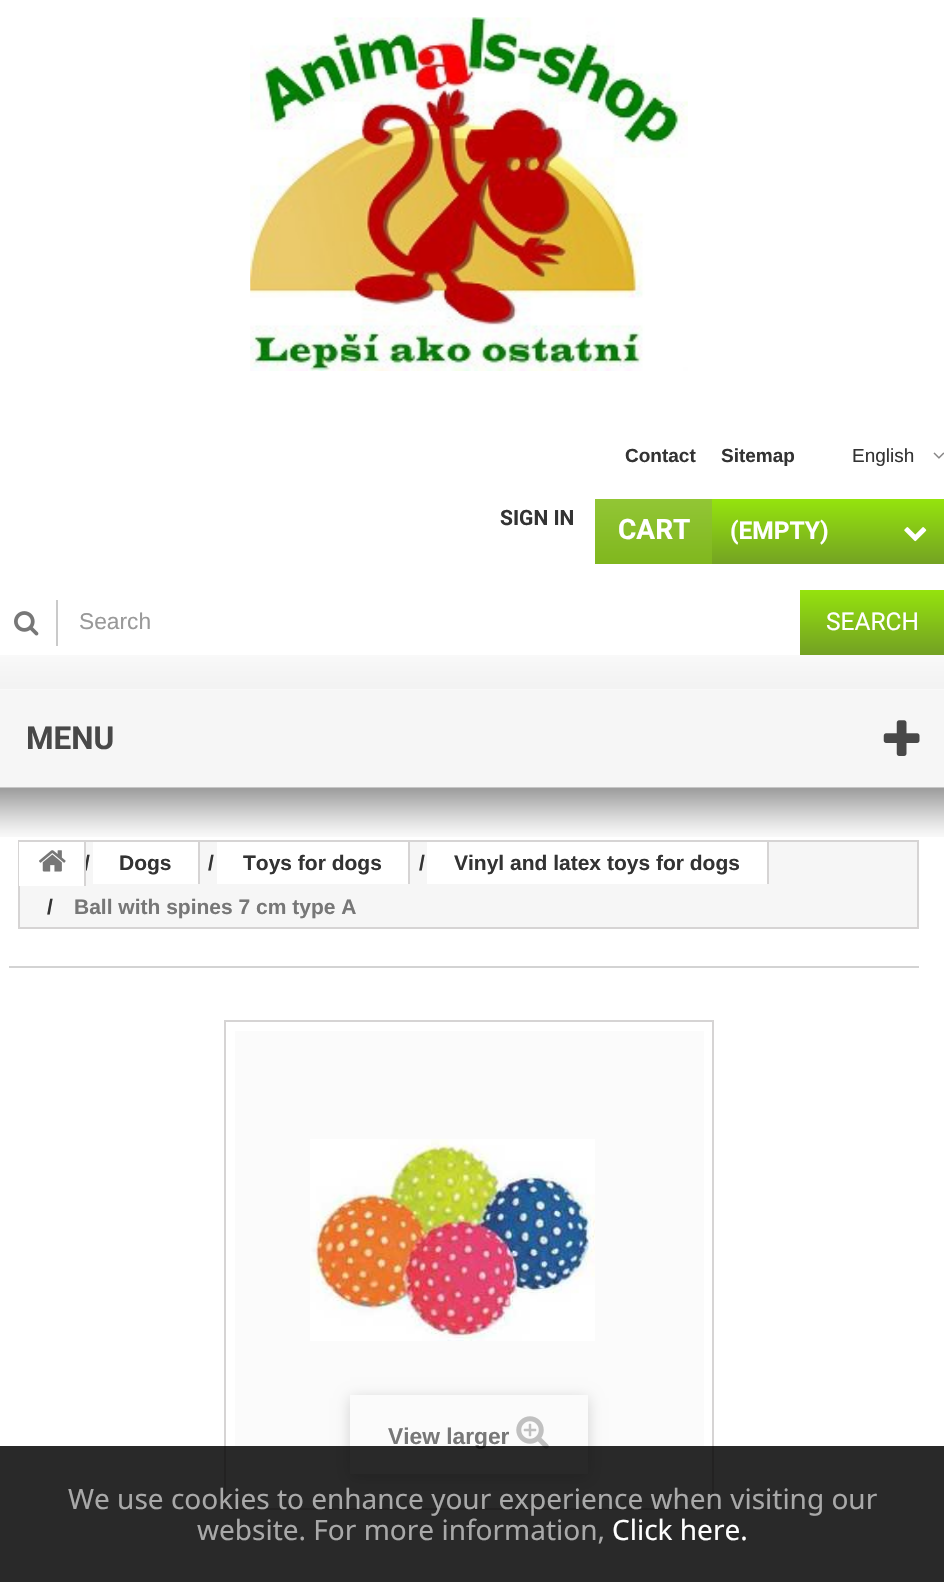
void draw(SkCanvas* canvas) {
	SkPaint paint;
	paint.setAntiAlias(true);
	auto svgPath = [&](const char* data, bool evenOdd = false) {
		SkPath result = *SkParsePath::FromSVGString(data);
		if (evenOdd) result.setFillType(SkPathFillType::kEvenOdd);
		return result;
	};
	canvas->clear(0xffffffff);
	canvas->drawImageRect(SkImages::DeferredFromEncodedData(SkData::MakeFromFileName("img1.png")), SkRect::MakeXYWH(0, 655, 944, 35), SkSamplingOptions());
	canvas->drawImageRect(SkImages::DeferredFromEncodedData(SkData::MakeFromFileName("img2.png")), SkRect::MakeXYWH(250, 17, 438, 354), SkSamplingOptions());
	SkFont f1(fontMgr->matchFamilyStyle("Liberation Sans", SkFontStyle::Bold()), 19);
	f1.setSubpixel(true);
	paint.setColor(0xff333333);
	canvas->drawString("Contact", 625, 462, f1, paint);
	canvas->drawString("Sitemap", 721, 462, f1, paint);
	SkFont f2(fontMgr->matchFamilyStyle("Liberation Sans", SkFontStyle::Normal()), 19);
	f2.setSubpixel(true);
	canvas->drawString("English", 852, 462, f2, paint);
	canvas->drawImageRect(SkImages::DeferredFromEncodedData(SkData::MakeFromFileName("img3.png")), SkRect::MakeXYWH(933, 452, 11, 7), SkSamplingOptions());
	SkFont f3(fontMgr->matchFamilyStyle("Roboto", SkFontStyle::Bold()), 21);
	f3.setSubpixel(true);
	canvas->drawString("SIGN IN", 500, 525, f3, paint);
	{
		const SkColor colors[] = {0xff95e30d, 0xff74a223};
		const float stops[] = {0, 1};
		const SkPoint ends[] = {{770, 499}, {770, 564}};
		paint.setShader(SkGradientShader::MakeLinear(ends, colors, stops, 2, SkTileMode::kClamp));
		paint.setAlpha(255);
	}
	canvas->drawRect(SkRect::MakeXYWH(712, 499, 232, 65), paint);
	{
		const SkColor colors[] = {0xff92c635, 0xff80b71e};
		const float stops[] = {0, 1};
		const SkPoint ends[] = {{654, 499}, {654, 564}};
		paint.setShader(SkGradientShader::MakeLinear(ends, colors, stops, 2, SkTileMode::kClamp));
		paint.setAlpha(255);
	}
	canvas->drawRect(SkRect::MakeXYWH(595, 499, 117, 65), paint);
	SkFont f4(fontMgr->matchFamilyStyle("Roboto", SkFontStyle::Bold()), 28);
	f4.setSubpixel(true);
	paint.setShader(nullptr);
	paint.setColor(0xffffffff);
	canvas->drawString("CART", 618, 539, f4, paint);
	SkFont f5(fontMgr->matchFamilyStyle("Roboto", SkFontStyle::Bold()), 24.5);
	f5.setSubpixel(true);
	canvas->drawString("(EMPTY)", 730, 539, f5, paint);
	canvas->drawImageRect(SkImages::DeferredFromEncodedData(SkData::MakeFromFileName("img4.png")), SkRect::MakeXYWH(904, 527, 23, 15), SkSamplingOptions());
	paint.setColor(0xffcacaca);
	canvas->drawRect(SkRect::MakeXYWH(56, 600, 2, 46), paint);
	canvas->drawImageRect(SkImages::DeferredFromEncodedData(SkData::MakeFromFileName("img5.png")), SkRect::MakeXYWH(14, 611, 25, 25), SkSamplingOptions());
	SkFont f6(fontMgr->matchFamilyStyle("Liberation Sans", SkFontStyle::Normal()), 22.75);
	f6.setSubpixel(true);
	paint.setColor(0xff999999);
	canvas->drawString("Search", 79, 629, f6, paint);
	{
		const SkColor colors[] = {0xff95e30d, 0xff74a223};
		const float stops[] = {0, 1};
		const SkPoint ends[] = {{872, 590}, {872, 653}};
		paint.setShader(SkGradientShader::MakeLinear(ends, colors, stops, 2, SkTileMode::kClamp));
		paint.setAlpha(255);
	}
	canvas->drawRect(SkRect::MakeXYWH(800, 590, 144, 63), paint);
	paint.setShader(nullptr);
	paint.setColor(0xff74a223);
	canvas->drawRect(SkRect::MakeXYWH(800, 653, 144, 2), paint);
	SkFont f7(fontMgr->matchFamilyStyle("Roboto", SkFontStyle::Normal()), 24.5);
	f7.setSubpixel(true);
	paint.setColor(0xffffffff);
	canvas->drawString("SEARCH", 826, 630, f7, paint);
	paint.setColor(0xfff6f6f6);
	canvas->drawRect(SkRect::MakeXYWH(0, 690, 944, 98), paint);
	SkFont f8(fontMgr->matchFamilyStyle("Roboto", SkFontStyle::Bold()), 31.5);
	f8.setSubpixel(true);
	paint.setColor(0xff484848);
	canvas->drawString("MENU", 26, 749, f8, paint);
	canvas->drawImageRect(SkImages::DeferredFromEncodedData(SkData::MakeFromFileName("img6.png")), SkRect::MakeXYWH(883, 720, 37, 36), SkSamplingOptions());
	canvas->drawImageRect(SkImages::DeferredFromEncodedData(SkData::MakeFromFileName("img7.png")), SkRect::MakeXYWH(0, 787, 944, 50), SkSamplingOptions());
	paint.setColor(0xfff6f6f6);
	canvas->drawRect(SkRect::MakeXYWH(19, 841, 899, 87), paint);
	paint.setStroke(true);
	paint.setStrokeWidth(2);
	paint.setColor(0xffd6d4d4);
	canvas->drawRect(SkRect::MakeXYWH(19, 841, 899, 87), paint);
	paint.setStroke(false);
	paint.setColor(0xffffffff);
	canvas->drawRect(SkRect::MakeXYWH(19, 842, 65, 44), paint);
	SkFont f9(fontMgr->matchFamilyStyle("Liberation Sans", SkFontStyle::Bold()), 21);
	f9.setSubpixel(true);
	paint.setColor(0xff333333);
	canvas->drawString("/", 84, 870, f9, paint);
	paint.setColor(0xffd6d4d4);
	canvas->drawRect(SkRect::MakeXYWH(84, 842, 2, 44), paint);
	canvas->drawImageRect(SkImages::DeferredFromEncodedData(SkData::MakeFromFileName("img8.png")), SkRect::MakeXYWH(39, 850, 27, 22), SkSamplingOptions());
	paint.setColor(0xffffffff);
	canvas->drawRect(SkRect::MakeXYWH(93, 842, 105, 42), paint);
	paint.setColor(0xffd6d4d4);
	canvas->drawRect(SkRect::MakeXYWH(198, 842, 2, 42), paint);
	paint.setColor(0xff333333);
	canvas->drawString("Dogs", 119, 870, f9, paint);
	canvas->drawString("/", 208, 870, f9, paint);
	paint.setColor(0xffffffff);
	canvas->drawRect(SkRect::MakeXYWH(217, 842, 191, 42), paint);
	paint.setColor(0xffd6d4d4);
	canvas->drawRect(SkRect::MakeXYWH(408, 842, 2, 42), paint);
	paint.setColor(0xff333333);
	canvas->drawString("Toys for dogs", 243, 870, f9, paint);
	canvas->drawString("/", 419, 870, f9, paint);
	paint.setColor(0xffffffff);
	canvas->drawRect(SkRect::MakeXYWH(427, 842, 340, 42), paint);
	paint.setColor(0xffd6d4d4);
	canvas->drawRect(SkRect::MakeXYWH(767, 842, 2, 42), paint);
	paint.setColor(0xff333333);
	canvas->drawString("Vinyl and latex toys for dogs", 454, 870, f9, paint);
	canvas->drawString("/", 47, 914, f9, paint);
	paint.setColor(0xff777777);
	canvas->drawString("Ball with spines 7 cm type A", 74, 914, f9, paint);
	paint.setColor(0xffd3d3d3);
	canvas->drawRect(SkRect::MakeXYWH(9, 966, 910, 2), paint);
	paint.setStroke(true);
	paint.setColor(0xffd6d4d4);
	canvas->drawRect(SkRect::MakeXYWH(225, 1021, 488, 488), paint);
	paint.setStroke(false);
	paint.setColor(0xfffbfbfb);
	canvas->drawRect(SkRect::MakeXYWH(235, 1031, 469, 469), paint);
	canvas->drawImageRect(SkImages::DeferredFromEncodedData(SkData::MakeFromFileName("img9.png")), SkRect::MakeXYWH(310, 1139, 285, 202), SkSamplingOptions());
	canvas->save();
	canvas->clipPath(svgPath("M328 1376H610V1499H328ZM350 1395H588V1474H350Z", true), true);
	paint.setColor(0x29000000);
	paint.setMaskFilter(SkMaskFilter::MakeBlur(kNormal_SkBlurStyle, 7));
	canvas->drawRect(SkRect::MakeXYWH(350, 1398, 238, 79), paint);
	paint.setMaskFilter(nullptr);
	canvas->restore();
	paint.setColor(0x80ffffff);
	canvas->drawRect(SkRect::MakeXYWH(350, 1473, 238, 1), paint);
	SkFont f10(fontMgr->matchFamilyStyle("Liberation Sans", SkFontStyle::Bold()), 22.75);
	f10.setSubpixel(true);
	paint.setColor(0xff777777);
	canvas->drawString("View larger", 388, 1444, f10, paint);
	canvas->drawImageRect(SkImages::DeferredFromEncodedData(SkData::MakeFromFileName("img10.png")), SkRect::MakeXYWH(516, 1416, 33, 33), SkSamplingOptions());
	paint.setColor(0xd6000000);
	canvas->drawRect(SkRect::MakeXYWH(0, 1446, 944, 136), paint);
	SkFont f11(fontMgr->matchFamilyStyle("Noto Sans", SkFontStyle::Normal()), 28);
	f11.setSubpixel(true);
	paint.setColor(0xffa9a9a9);
	canvas->drawString("We use cookies to enhance your experience when visiting our", 68, 1509, f11, paint);
	canvas->drawString("website. For more information,", 197, 1540, f11, paint);
	paint.setColor(0xffffffff);
	canvas->drawString("Click here.", 612, 1540, f11, paint);
}
